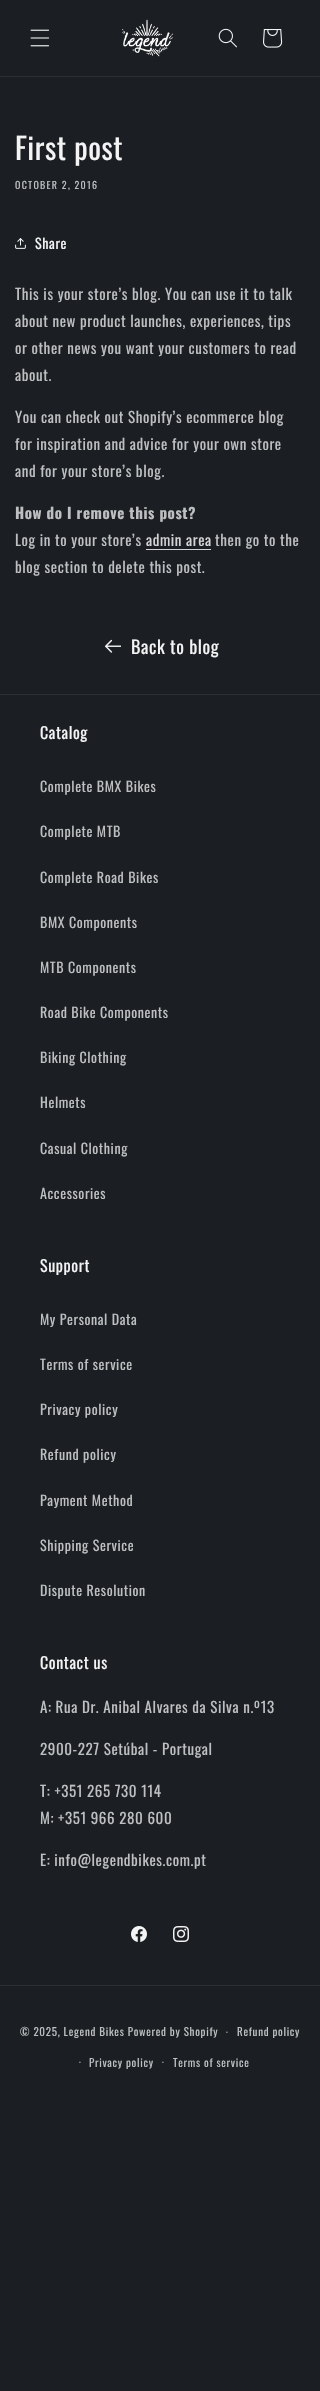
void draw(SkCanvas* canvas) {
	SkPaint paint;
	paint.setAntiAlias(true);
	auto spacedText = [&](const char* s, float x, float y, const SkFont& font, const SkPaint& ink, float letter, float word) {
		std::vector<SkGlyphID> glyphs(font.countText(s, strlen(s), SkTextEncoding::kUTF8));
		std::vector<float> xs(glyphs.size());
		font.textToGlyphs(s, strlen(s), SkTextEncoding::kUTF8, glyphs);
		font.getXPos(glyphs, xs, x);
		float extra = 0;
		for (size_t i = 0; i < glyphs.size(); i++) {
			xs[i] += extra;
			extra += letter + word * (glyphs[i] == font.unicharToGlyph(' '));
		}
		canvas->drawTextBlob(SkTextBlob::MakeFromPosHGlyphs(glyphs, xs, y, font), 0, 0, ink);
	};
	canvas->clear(0xff1b1f23);
	paint.setColor(0xff2c3034);
	canvas->drawRect(SkRect::MakeXYWH(0, 76, 320, 1), paint);
	canvas->drawImageRect(SkImages::DeferredFromEncodedData(SkData::MakeFromFileName("img1.png")), SkRect::MakeXYWH(30, 29, 20, 18), SkSamplingOptions());
	canvas->drawImageRect(SkImages::DeferredFromEncodedData(SkData::MakeFromFileName("img2.png")), SkRect::MakeXYWH(122, 19, 51, 38), SkSamplingOptions());
	canvas->drawImageRect(SkImages::DeferredFromEncodedData(SkData::MakeFromFileName("img3.png")), SkRect::MakeXYWH(218, 28, 19, 20), SkSamplingOptions());
	canvas->drawImageRect(SkImages::DeferredFromEncodedData(SkData::MakeFromFileName("img4.png")), SkRect::MakeXYWH(263, 29, 20, 19), SkSamplingOptions());
	SkFont f1(fontMgr->matchFamilyStyle("Oswald", SkFontStyle::Normal()), 30);
	f1.setSubpixel(true);
	paint.setColor(0xfff4f4f4);
	spacedText("First post", 15, 160, f1, paint, 0.6, 0);
	SkFont f2(fontMgr->matchFamilyStyle("Oswald", SkFontStyle::Normal()), 10);
	f2.setSubpixel(true);
	paint.setColor(0xffbebfc0);
	spacedText("OCTOBER 2, 2016", 15, 189, f2, paint, 1.25, 0);
	canvas->drawImageRect(SkImages::DeferredFromEncodedData(SkData::MakeFromFileName("img5.png")), SkRect::MakeXYWH(15, 238, 11, 11), SkSamplingOptions());
	SkFont f3(fontMgr->matchFamilyStyle("Oswald", SkFontStyle::Normal()), 14);
	f3.setSubpixel(true);
	paint.setColor(0xfff4f4f4);
	spacedText("Share", 35, 249, f3, paint, 0.6, 0);
	SkFont f4(fontMgr->matchFamilyStyle("Oswald", SkFontStyle::Normal()), 15);
	f4.setSubpixel(true);
	paint.setColor(0xffbebfc0);
	spacedText("This is your store’s blog. You can use it to talk", 15, 300, f4, paint, 0.6, 0);
	spacedText("about new product launches, experiences, tips", 15, 327, f4, paint, 0.6, 0);
	spacedText("or other news you want your customers to read", 15, 354, f4, paint, 0.6, 0);
	spacedText("about.", 15, 381, f4, paint, 0.6, 0);
	spacedText("You can check out Shopify’s ecommerce blog", 15, 423, f4, paint, 0.6, 0);
	spacedText("for inspiration and advice for your own store", 15, 450, f4, paint, 0.6, 0);
	spacedText("and for your store’s blog.", 15, 477, f4, paint, 0.6, 0);
	SkFont f5(fontMgr->matchFamilyStyle("Oswald", SkFontStyle::Bold()), 15);
	f5.setSubpixel(true);
	spacedText("How do I remove this post?", 15, 519, f5, paint, 0.6, 0);
	spacedText("Log in to your store’s", 15, 546, f4, paint, 0.6, 0);
	paint.setColor(0xffd3d4d5);
	spacedText("admin area", 146, 546, f4, paint, 0.6, 0);
	canvas->drawRect(SkRect::MakeXYWH(146, 549, 65, 1), paint);
	paint.setColor(0xffbebfc0);
	spacedText("then go to the", 215, 546, f4, paint, 0.6, 0);
	spacedText("blog section to delete this post.", 15, 573, f4, paint, 0.6, 0);
	canvas->drawImageRect(SkImages::DeferredFromEncodedData(SkData::MakeFromFileName("img6.png")), SkRect::MakeXYWH(105, 639, 16, 14), SkSamplingOptions());
	SkFont f6(fontMgr->matchFamilyStyle("Oswald", SkFontStyle::Normal()), 18);
	f6.setSubpixel(true);
	paint.setColor(0xfff4f4f4);
	spacedText("Back to blog", 131, 654, f6, paint, 0.6, 0);
	paint.setColor(0xff2c3034);
	canvas->drawRect(SkRect::MakeXYWH(0, 694, 320, 1), paint);
	SkFont f7(fontMgr->matchFamilyStyle("Oswald", SkFontStyle::Normal()), 16);
	f7.setSubpixel(true);
	paint.setColor(0xfff4f4f4);
	spacedText("Catalog", 40, 739, f7, paint, 0.6, 0);
	paint.setColor(0xffbebfc0);
	spacedText("Complete BMX Bikes", 40, 792, f3, paint, 0.6, 0);
	spacedText("Complete MTB", 40, 837, f3, paint, 0.6, 0);
	spacedText("Complete Road Bikes", 40, 883, f3, paint, 0.6, 0);
	spacedText("BMX Components", 40, 928, f3, paint, 0.6, 0);
	spacedText("MTB Components", 40, 973, f3, paint, 0.6, 0);
	spacedText("Road Bike Components", 40, 1018, f3, paint, 0.6, 0);
	spacedText("Biking Clothing", 40, 1063, f3, paint, 0.6, 0);
	spacedText("Helmets", 40, 1108, f3, paint, 0.6, 0);
	spacedText("Casual Clothing", 40, 1154, f3, paint, 0.6, 0);
	spacedText("Accessories", 40, 1199, f3, paint, 0.6, 0);
	paint.setColor(0xfff4f4f4);
	spacedText("Support", 40, 1272, f7, paint, 0.6, 0);
	paint.setColor(0xffbebfc0);
	spacedText("My Personal Data", 40, 1325, f3, paint, 0.6, 0);
	spacedText("Terms of service", 40, 1370, f3, paint, 0.6, 0);
	spacedText("Privacy policy", 40, 1415, f3, paint, 0.6, 0);
	spacedText("Refund policy", 40, 1460, f3, paint, 0.6, 0);
	spacedText("Payment Method", 40, 1506, f3, paint, 0.6, 0);
	spacedText("Shipping Service", 40, 1551, f3, paint, 0.6, 0);
	spacedText("Dispute Resolution", 40, 1596, f3, paint, 0.6, 0);
	paint.setColor(0xfff4f4f4);
	spacedText("Contact us", 40, 1669, f7, paint, 0.6, 0);
	paint.setColor(0xffbebfc0);
	spacedText("A: Rua Dr. Anibal Alvares da Silva n.º13", 40, 1713, f4, paint, 0.6, 0);
	spacedText("2900-227 Setúbal - Portugal", 40, 1755, f4, paint, 0.6, 0);
	spacedText("T: +351 265 730 114", 40, 1797, f4, paint, 0.6, 0);
	spacedText("M: +351 966 280 600", 40, 1824, f4, paint, 0.6, 0);
	spacedText("E: info@legendbikes.com.pt", 40, 1866, f4, paint, 0.6, 0);
	canvas->drawImageRect(SkImages::DeferredFromEncodedData(SkData::MakeFromFileName("img7.png")), SkRect::MakeXYWH(131, 1926, 16, 16), SkSamplingOptions());
	canvas->drawImageRect(SkImages::DeferredFromEncodedData(SkData::MakeFromFileName("img8.png")), SkRect::MakeXYWH(173, 1926, 16, 16), SkSamplingOptions());
	paint.setColor(0xff2c3034);
	canvas->drawRect(SkRect::MakeXYWH(0, 1985, 320, 1), paint);
	SkFont f8(fontMgr->matchFamilyStyle("Oswald", SkFontStyle::Normal()), 11);
	f8.setSubpixel(true);
	paint.setColor(0xffbebfc0);
	spacedText("© 2025, Legend Bikes Powered by Shopify", 20, 2036, f8, paint, 0.7, 0);
	spacedText("·", 226, 2036, f2, paint, 0.7, 0);
	spacedText("Refund policy", 237, 2036, f8, paint, 0.7, 0);
	spacedText("·", 79, 2066, f2, paint, 0.7, 0);
	spacedText("Privacy policy", 89, 2067, f8, paint, 0.7, 0);
	spacedText("·", 162, 2066, f2, paint, 0.7, 0);
	spacedText("Terms of service", 173, 2067, f8, paint, 0.7, 0);
}
